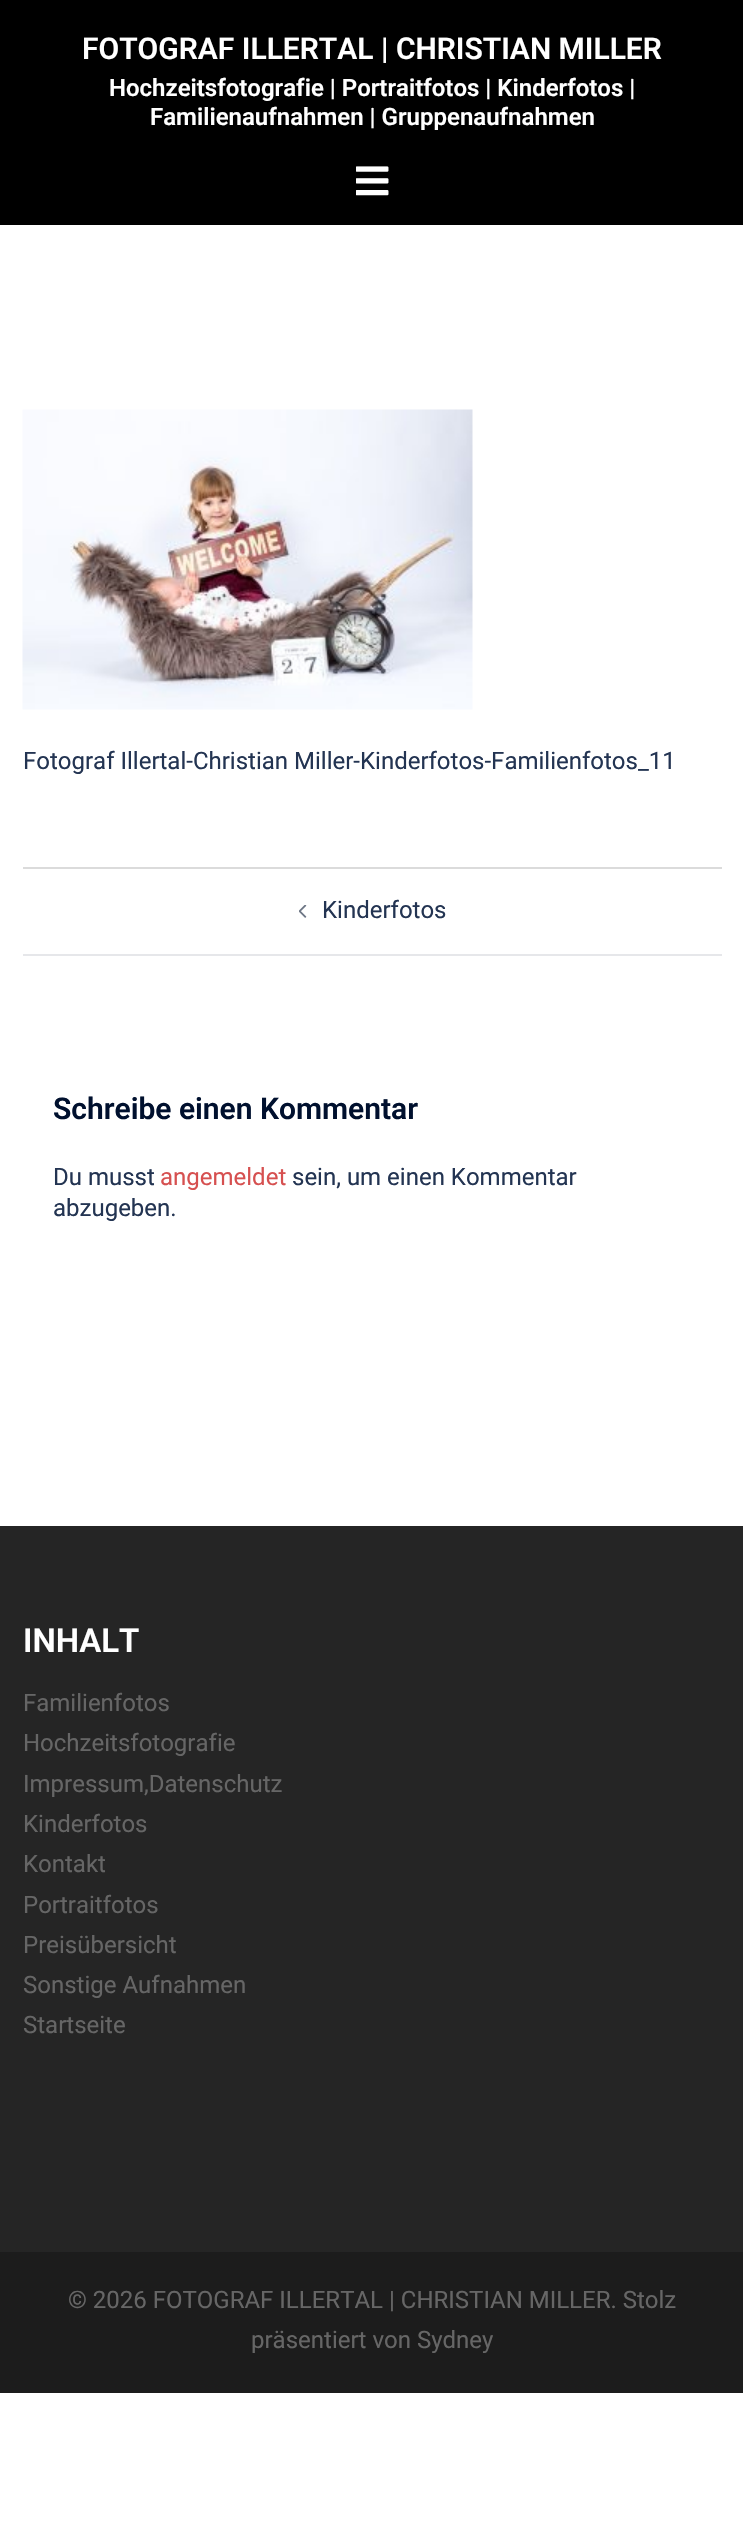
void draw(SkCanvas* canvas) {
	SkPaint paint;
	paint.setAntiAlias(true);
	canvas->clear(0xffffffff);
	paint.setColor(0xff000000);
	canvas->drawRect(SkRect::MakeXYWH(0, 0, 743, 225), paint);
	SkFont f1(fontMgr->matchFamilyStyle("Roboto", SkFontStyle(600, SkFontStyle::kNormal_Width, SkFontStyle::kUpright_Slant)), 30);
	f1.setSubpixel(true);
	paint.setColor(0xffffffff);
	canvas->drawString("FOTOGRAF ILLERTAL | CHRISTIAN MILLER", 82, 59, f1, paint);
	SkFont f2(fontMgr->matchFamilyStyle("Roboto", SkFontStyle(600, SkFontStyle::kNormal_Width, SkFontStyle::kUpright_Slant)), 24);
	f2.setSubpixel(true);
	canvas->drawString("Hochzeitsfotografie | Portraitfotos | Kinderfotos |", 109, 96, f2, paint);
	canvas->drawString("Familienaufnahmen | Gruppenaufnahmen", 150, 125, f2, paint);
	canvas->drawImageRect(SkImages::DeferredFromEncodedData(SkData::MakeFromFileName("img1.png")), SkRect::MakeXYWH(356, 166, 33, 30), SkSamplingOptions());
	canvas->drawImageRect(SkImages::DeferredFromEncodedData(SkData::MakeFromFileName("img2.png")), SkRect::MakeXYWH(22, 409, 451, 301), SkSamplingOptions());
	SkFont f3(fontMgr->matchFamilyStyle("Roboto", SkFontStyle::Normal()), 24);
	f3.setSubpixel(true);
	paint.setColor(0xff233452);
	canvas->drawString("Fotograf Illertal-Christian Miller-Kinderfotos-Familienfotos_11", 23, 769, f3, paint);
	paint.setColor(0xffdbdbdb);
	canvas->drawRect(SkRect::MakeXYWH(23, 867, 699, 2), paint);
	paint.setColor(0xffe6e7ea);
	canvas->drawRect(SkRect::MakeXYWH(23, 954, 699, 2), paint);
	canvas->drawImageRect(SkImages::DeferredFromEncodedData(SkData::MakeFromFileName("img3.png")), SkRect::MakeXYWH(299, 905, 8, 13), SkSamplingOptions());
	paint.setColor(0xff233452);
	canvas->drawString("Kinderfotos", 322, 918, f3, paint);
	paint.setColor(0xff00102e);
	canvas->drawString("Schreibe einen Kommentar", 53, 1119, f1, paint);
	paint.setColor(0xff233452);
	canvas->drawString("Du musst", 53, 1185, f3, paint);
	paint.setColor(0xffd65050);
	canvas->drawString("angemeldet", 160, 1185, f3, paint);
	paint.setColor(0xff233452);
	canvas->drawString("sein, um einen Kommentar", 292, 1185, f3, paint);
	canvas->drawString("abzugeben.", 53, 1216, f3, paint);
	paint.setColor(0xff252525);
	canvas->drawRect(SkRect::MakeXYWH(0, 1526, 743, 726), paint);
	SkFont f4(fontMgr->matchFamilyStyle("Roboto", SkFontStyle(600, SkFontStyle::kNormal_Width, SkFontStyle::kUpright_Slant)), 33);
	f4.setSubpixel(true);
	paint.setColor(0xffffffff);
	canvas->drawString("INHALT", 23, 1652, f4, paint);
	paint.setColor(0xff666666);
	canvas->drawString("Familienfotos", 23, 1711, f3, paint);
	canvas->drawString("Hochzeitsfotografie", 23, 1751, f3, paint);
	canvas->drawString("Impressum,Datenschutz", 23, 1792, f3, paint);
	canvas->drawString("Kinderfotos", 23, 1832, f3, paint);
	canvas->drawString("Kontakt", 23, 1872, f3, paint);
	canvas->drawString("Portraitfotos", 23, 1913, f3, paint);
	canvas->drawString("Preisübersicht", 23, 1953, f3, paint);
	canvas->drawString("Sonstige Aufnahmen", 23, 1993, f3, paint);
	canvas->drawString("Startseite", 23, 2033, f3, paint);
	paint.setColor(0xff1c1c1c);
	canvas->drawRect(SkRect::MakeXYWH(0, 2252, 743, 141), paint);
	paint.setColor(0xff666666);
	canvas->drawString("© 2026 FOTOGRAF ILLERTAL | CHRISTIAN MILLER. Stolz", 68, 2308, f3, paint);
	canvas->drawString("präsentiert von Sydney", 251, 2348, f3, paint);
}
